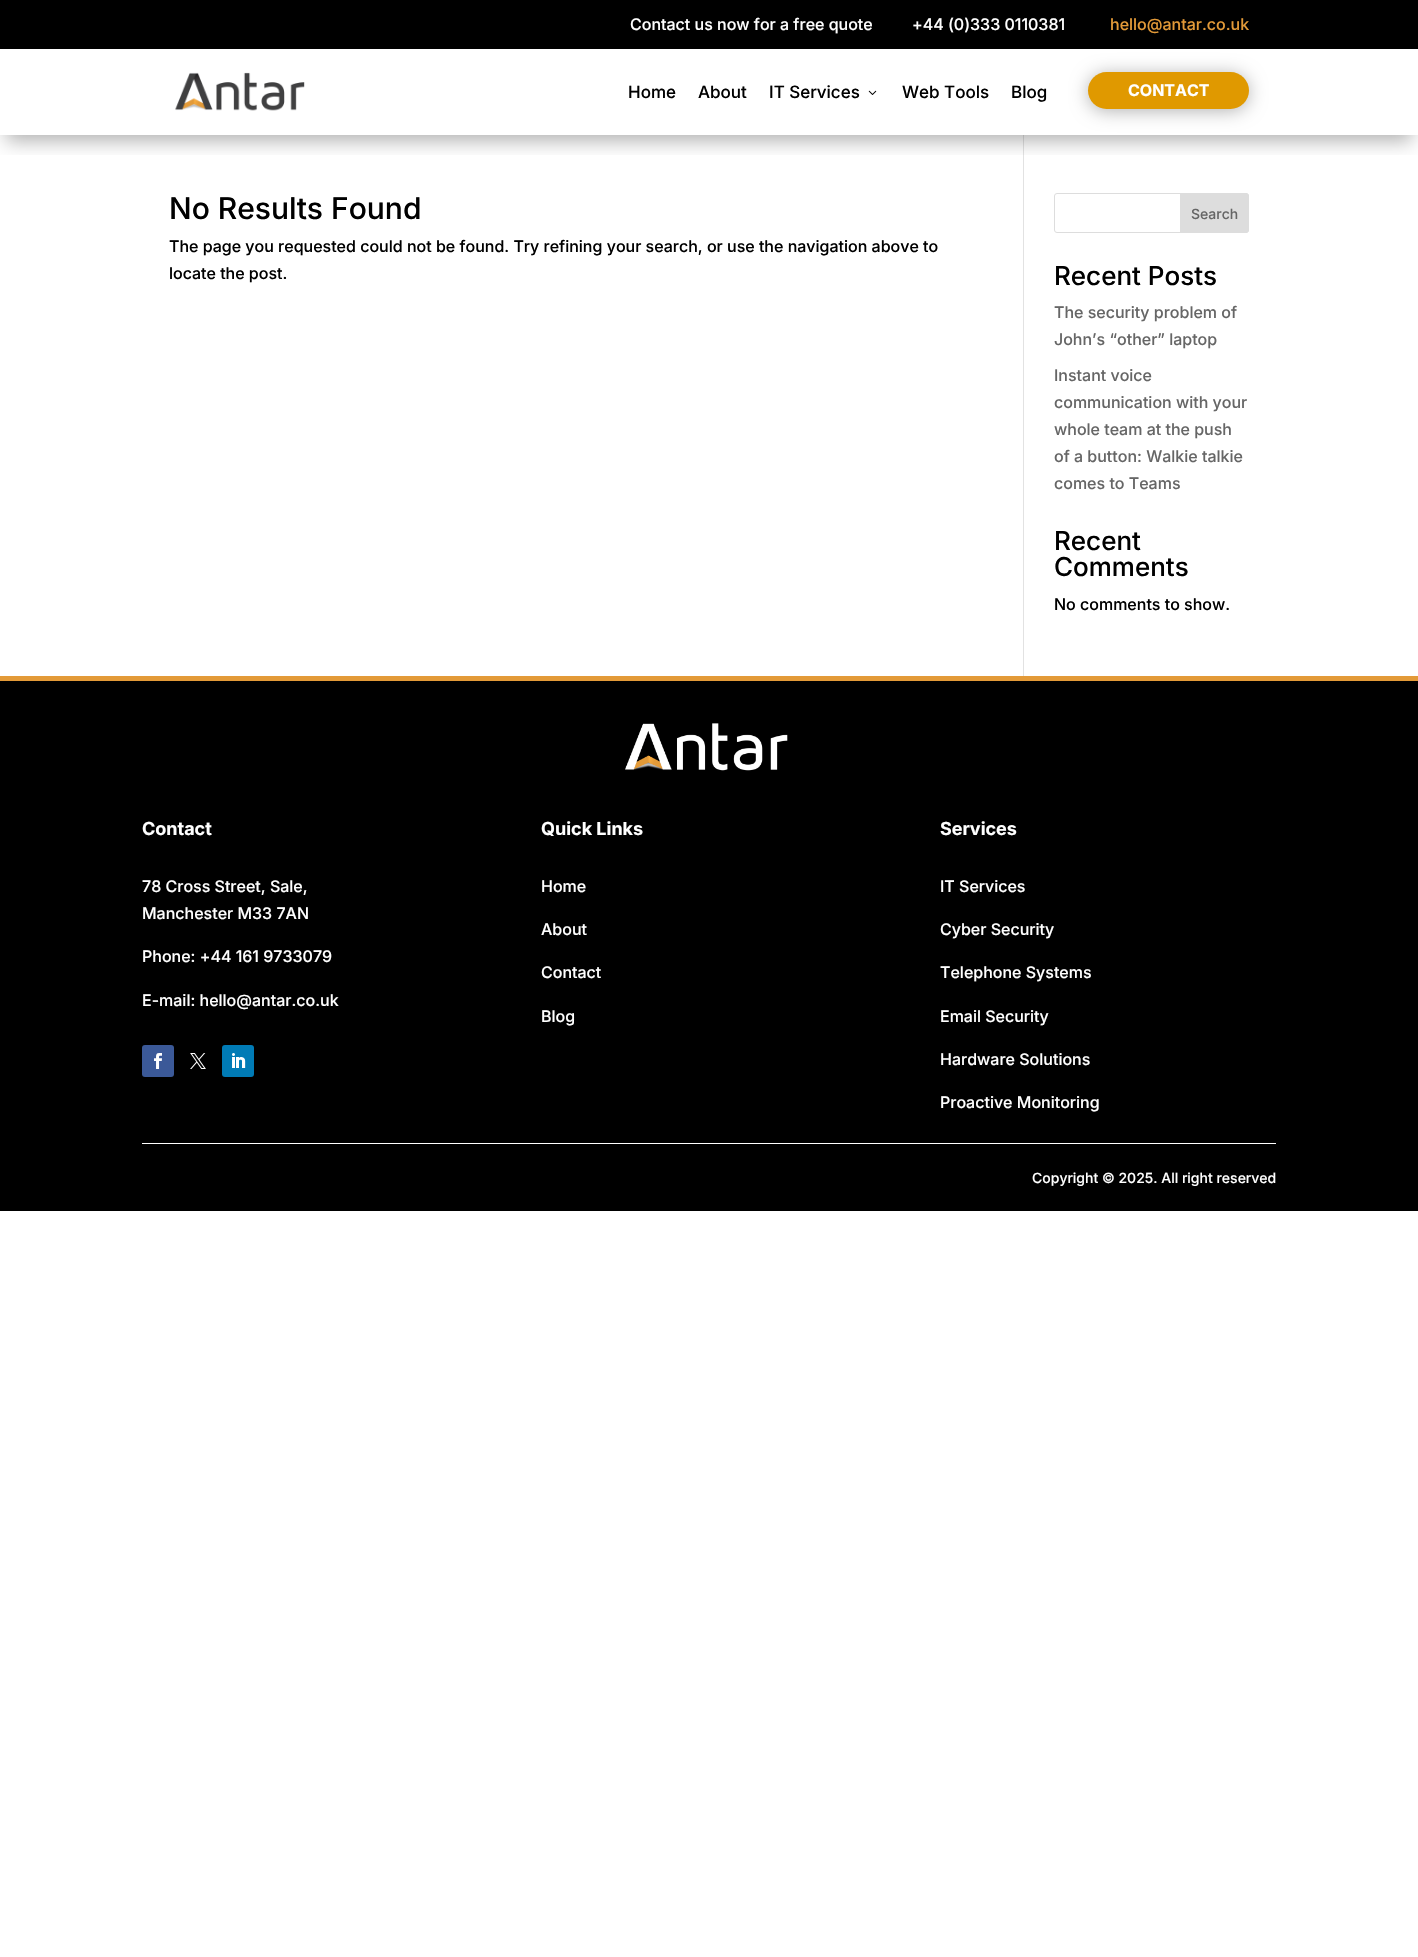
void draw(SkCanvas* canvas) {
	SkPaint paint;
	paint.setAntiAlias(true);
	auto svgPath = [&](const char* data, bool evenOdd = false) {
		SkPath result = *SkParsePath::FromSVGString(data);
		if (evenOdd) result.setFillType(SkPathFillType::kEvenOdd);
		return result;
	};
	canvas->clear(0xffffffff);
	paint.setColor(0xff000000);
	canvas->drawRect(SkRect::MakeXYWH(0, 0, 1418, 49), paint);
	SkFont f1(fontMgr->matchFamilyStyle("Inter", SkFontStyle(500, SkFontStyle::kNormal_Width, SkFontStyle::kUpright_Slant)), 16);
	f1.setSubpixel(true);
	paint.setColor(0xffffffff);
	canvas->drawString("Contact us now for a free quote", 630, 30, f1, paint);
	canvas->drawString("+44 (0)333 0110381", 912, 30, f1, paint);
	paint.setColor(0xffe39a38);
	canvas->drawString("hello@antar.co.uk", 1110, 30, f1, paint);
	paint.setColor(0xffe2e2e2);
	canvas->drawRect(SkRect::MakeXYWH(1023, 135, 1, 541), paint);
	canvas->save();
	canvas->clipRect(SkRect::MakeXYWH(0, 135, 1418, 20));
	paint.setColor(0x4d000000);
	paint.setMaskFilter(SkMaskFilter::MakeBlur(kNormal_SkBlurStyle, 9));
	canvas->drawRect(SkRect::MakeXYWH(6, 67, 1406, 74), paint);
	paint.setMaskFilter(nullptr);
	canvas->restore();
	canvas->drawImageRect(SkImages::DeferredFromEncodedData(SkData::MakeFromFileName("img1.png")), SkRect::MakeXYWH(175, 72, 130, 39), SkSamplingOptions());
	SkFont f2(fontMgr->matchFamilyStyle("Inter", SkFontStyle(500, SkFontStyle::kNormal_Width, SkFontStyle::kUpright_Slant)), 17);
	f2.setSubpixel(true);
	paint.setColor(0xff000000);
	canvas->drawString("Home", 628, 98, f2, paint);
	canvas->drawString("About", 698, 98, f2, paint);
	canvas->drawString("IT Services", 769, 98, f2, paint);
	canvas->drawImageRect(SkImages::DeferredFromEncodedData(SkData::MakeFromFileName("img2.png")), SkRect::MakeXYWH(868, 90, 9, 5), SkSamplingOptions());
	canvas->drawString("Web Tools", 902, 98, f2, paint);
	canvas->drawString("Blog", 1011, 98, f2, paint);
	paint.setColor(0x4d000000);
	paint.setMaskFilter(SkMaskFilter::MakeBlur(kNormal_SkBlurStyle, 9));
	canvas->drawRoundRect(SkRect::MakeXYWH(1088, 74, 161, 37), 18.5, 18.5, paint);
	paint.setMaskFilter(nullptr);
	paint.setColor(0xffe09900);
	canvas->drawRoundRect(SkRect::MakeXYWH(1088, 72, 161, 37), 18.5, 18.5, paint);
	SkFont f3(fontMgr->matchFamilyStyle("Inter", SkFontStyle::Bold()), 16);
	f3.setSubpixel(true);
	paint.setColor(0xffffffff);
	canvas->drawString("CONTACT", 1128, 96, f3, paint);
	SkFont f4(fontMgr->matchFamilyStyle("Inter", SkFontStyle(500, SkFontStyle::kNormal_Width, SkFontStyle::kUpright_Slant)), 30);
	f4.setSubpixel(true);
	paint.setColor(0xff000000);
	canvas->drawString("No Results Found", 169, 219, f4, paint);
	canvas->drawString("The page you requested could not be found. Try refining your search, or use the navigation above to", 169, 252, f1, paint);
	canvas->drawString("locate the post.", 169, 279, f1, paint);
	paint.setStroke(true);
	paint.setStrokeWidth(1);
	paint.setColor(0xffdddddd);
	canvas->drawRoundRect(SkRect::MakeXYWH(1054.5, 193.5, 194, 39), 2.5, 2.5, paint);
	paint.setStroke(false);
	canvas->drawPath(svgPath("M1180.5 193.5H1246C1247.5 193.5 1248.5 194.5 1248.5 196V230C1248.5 231.5 1247.5 232.5 1246 232.5H1180.5Z"), paint);
	paint.setStroke(true);
	canvas->drawPath(svgPath("M1180.5 193.5H1246C1247.5 193.5 1248.5 194.5 1248.5 196V230C1248.5 231.5 1247.5 232.5 1246 232.5H1180.5Z"), paint);
	SkFont f5(fontMgr->matchFamilyStyle("Inter", SkFontStyle(500, SkFontStyle::kNormal_Width, SkFontStyle::kUpright_Slant)), 14);
	f5.setSubpixel(true);
	paint.setStroke(false);
	paint.setColor(0xff666666);
	canvas->drawString("Search", 1191, 219, f5, paint);
	SkFont f6(fontMgr->matchFamilyStyle("Inter", SkFontStyle(500, SkFontStyle::kNormal_Width, SkFontStyle::kUpright_Slant)), 26);
	f6.setSubpixel(true);
	paint.setColor(0xff000000);
	canvas->drawString("Recent Posts", 1054, 285, f6, paint);
	paint.setColor(0xff666666);
	canvas->drawString("The security problem of", 1054, 318, f1, paint);
	canvas->drawString("John’s “other” laptop", 1054, 345, f1, paint);
	canvas->drawString("Instant voice", 1054, 381, f1, paint);
	canvas->drawString("communication with your", 1054, 408, f1, paint);
	canvas->drawString("whole team at the push", 1054, 435, f1, paint);
	canvas->drawString("of a button: Walkie talkie", 1054, 462, f1, paint);
	canvas->drawString("comes to Teams", 1054, 489, f1, paint);
	paint.setColor(0xff000000);
	canvas->drawString("Recent", 1054, 550, f6, paint);
	canvas->drawString("Comments", 1054, 576, f6, paint);
	canvas->drawString("No comments to show.", 1054, 610, f1, paint);
	canvas->drawRect(SkRect::MakeXYWH(0, 681, 1418, 530), paint);
	paint.setColor(0xffe39a38);
	canvas->drawRect(SkRect::MakeXYWH(0, 676, 1418, 5), paint);
	canvas->drawImageRect(SkImages::DeferredFromEncodedData(SkData::MakeFromFileName("img3.png")), SkRect::MakeXYWH(625, 723, 163, 48), SkSamplingOptions());
	SkFont f7(fontMgr->matchFamilyStyle("Inter", SkFontStyle::Bold()), 18);
	f7.setSubpixel(true);
	paint.setColor(0xffffffff);
	canvas->drawString("Contact", 142, 835, f7, paint);
	canvas->drawString("78 Cross Street, Sale,", 142, 892, f1, paint);
	canvas->drawString("Manchester M33 7AN", 142, 919, f1, paint);
	canvas->drawString("Phone: +44 161 9733079", 142, 962, f1, paint);
	canvas->drawString("E-mail: hello@antar.co.uk", 142, 1006, f1, paint);
	paint.setColor(0xff3b5998);
	canvas->drawRoundRect(SkRect::MakeXYWH(142, 1045, 32, 32), 3, 3, paint);
	canvas->drawImageRect(SkImages::DeferredFromEncodedData(SkData::MakeFromFileName("img4.png")), SkRect::MakeXYWH(154, 1053, 8, 16), SkSamplingOptions());
	canvas->drawImageRect(SkImages::DeferredFromEncodedData(SkData::MakeFromFileName("img5.png")), SkRect::MakeXYWH(190, 1053, 16, 16), SkSamplingOptions());
	paint.setColor(0xff007bb6);
	canvas->drawRoundRect(SkRect::MakeXYWH(222, 1045, 32, 32), 3, 3, paint);
	canvas->drawImageRect(SkImages::DeferredFromEncodedData(SkData::MakeFromFileName("img6.png")), SkRect::MakeXYWH(232, 1053, 14, 15), SkSamplingOptions());
	paint.setColor(0xffffffff);
	canvas->drawString("Quick Links", 541, 835, f7, paint);
	canvas->drawString("Home", 541, 892, f1, paint);
	canvas->drawString("About", 541, 935, f1, paint);
	canvas->drawString("Contact", 541, 978, f1, paint);
	canvas->drawString("Blog", 541, 1022, f1, paint);
	canvas->drawString("Services", 940, 835, f7, paint);
	canvas->drawString("IT Services", 940, 892, f1, paint);
	canvas->drawString("Cyber Security", 940, 935, f1, paint);
	canvas->drawString("Telephone Systems", 940, 978, f1, paint);
	canvas->drawString("Email Security", 940, 1022, f1, paint);
	canvas->drawString("Hardware Solutions", 940, 1065, f1, paint);
	canvas->drawString("Proactive Monitoring", 940, 1108, f1, paint);
	canvas->drawRect(SkRect::MakeXYWH(142, 1143, 1134, 1), paint);
	canvas->drawString("Copyright © 2025. All right reserved", 1032, 1183, f5, paint);
}
